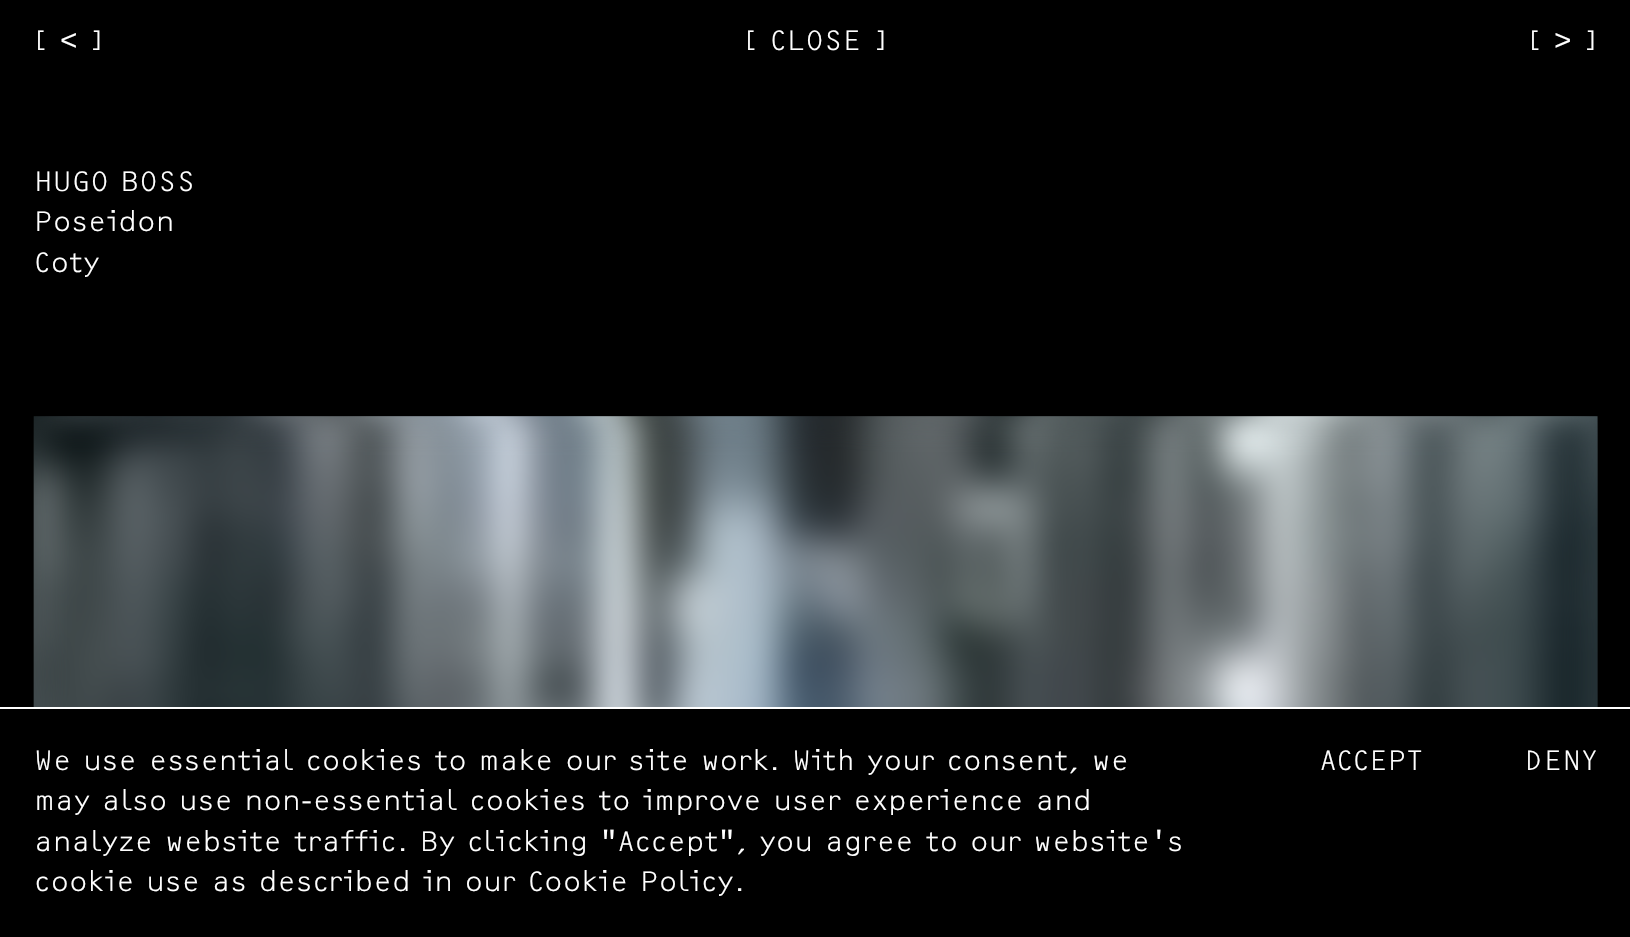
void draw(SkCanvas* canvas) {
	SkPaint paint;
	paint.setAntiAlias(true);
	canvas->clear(0xff000000);
	SkFont f1(fontMgr->matchFamilyStyle("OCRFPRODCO", SkFontStyle(200, SkFontStyle::kNormal_Width, SkFontStyle::kUpright_Slant)), 29.25);
	f1.setSubpixel(true);
	paint.setColor(0xffffffff);
	canvas->drawString("[", 34, 50, f1, paint);
	SkFont f2(fontMgr->matchFamilyStyle("Liberation Mono", SkFontStyle::Normal()), 29.25);
	f2.setSubpixel(true);
	canvas->drawString("<", 60, 50, f2, paint);
	canvas->drawString("]", 89, 50, f1, paint);
	canvas->drawString("[ CLOSE ]", 744, 50, f1, paint);
	canvas->drawString("[", 1528, 50, f1, paint);
	canvas->drawString(">", 1554, 50, f2, paint);
	canvas->drawString("]", 1583, 50, f1, paint);
	canvas->drawString("HUGO BOSS", 34, 191, f1, paint);
	canvas->drawString("Poseidon", 34, 231, f1, paint);
	canvas->drawString("Coty", 34, 272, f1, paint);
	canvas->drawImageRect(SkImages::DeferredFromEncodedData(SkData::MakeFromFileName("img1.png")), SkRect::MakeXYWH(33, 416, 1565, 291), SkSamplingOptions());
	canvas->drawRect(SkRect::MakeXYWH(0, 707, 1630, 2), paint);
	canvas->drawString("We use essential cookies to make our site work. With your consent, we", 34, 770, f1, paint);
	canvas->drawString("may also use non-essential cookies to improve user experience and", 34, 810, f1, paint);
	canvas->drawString("analyze website traffic. By clicking", 34, 851, f1, paint);
	canvas->drawString("\"", 600, 851, f2, paint);
	canvas->drawString("Accept", 618, 851, f1, paint);
	canvas->drawString("\"", 718, 851, f2, paint);
	canvas->drawString(", you agree to our website", 736, 851, f1, paint);
	canvas->drawString("'", 1150, 851, f2, paint);
	canvas->drawString("s", 1167, 851, f1, paint);
	canvas->drawString("cookie use as described in our Cookie Policy.", 34, 891, f1, paint);
	canvas->drawString("ACCEPT", 1320, 770, f1, paint);
	canvas->drawString("DENY", 1524, 770, f1, paint);
}
